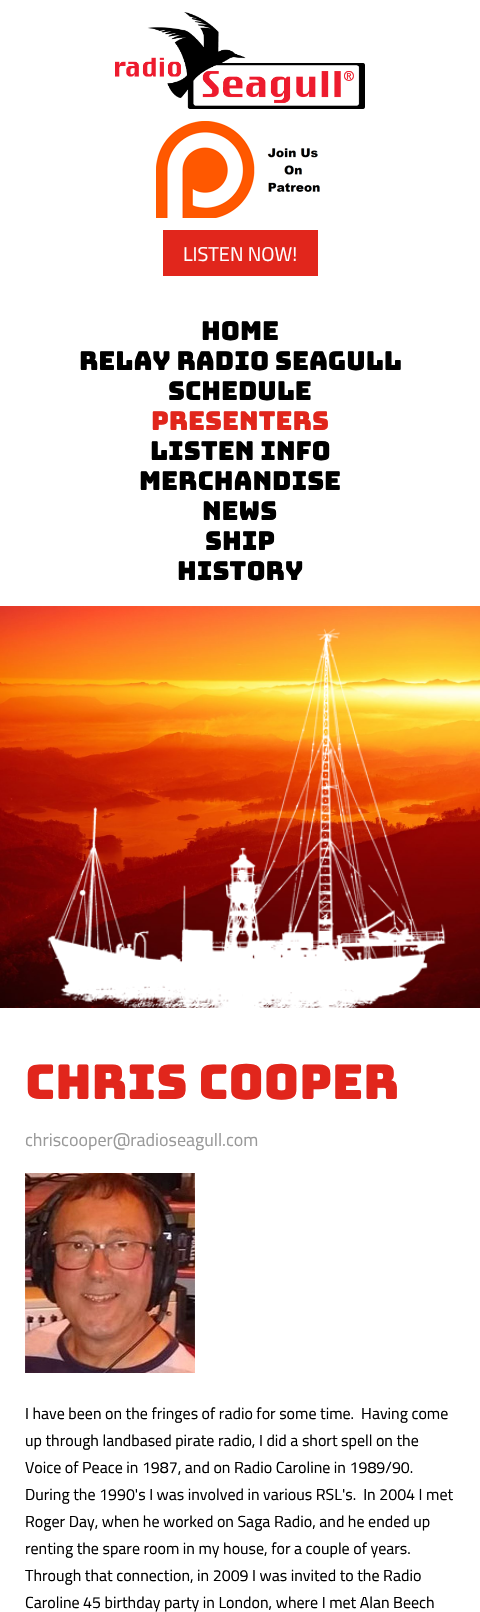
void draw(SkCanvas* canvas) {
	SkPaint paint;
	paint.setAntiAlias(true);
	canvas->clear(0xffffffff);
	canvas->drawImageRect(SkImages::DeferredFromEncodedData(SkData::MakeFromFileName("img1.png")), SkRect::MakeXYWH(115, 12, 250, 97), SkSamplingOptions());
	canvas->drawImageRect(SkImages::DeferredFromEncodedData(SkData::MakeFromFileName("img2.png")), SkRect::MakeXYWH(156, 121, 164, 97), SkSamplingOptions());
	paint.setColor(0xffe1261c);
	canvas->drawRect(SkRect::MakeXYWH(163, 230, 155, 46), paint);
	SkFont f1(fontMgr->matchFamilyStyle("Titillium Web", SkFontStyle::Normal()), 20);
	f1.setSubpixel(true);
	paint.setColor(0xffffffff);
	canvas->drawString("LISTEN NOW!", 183, 261, f1, paint);
	SkFont f2(fontMgr->matchFamilyStyle("Bungee", SkFontStyle::Normal()), 26);
	f2.setSubpixel(true);
	paint.setColor(0xff000000);
	canvas->drawString("Home", 201, 340, f2, paint);
	canvas->drawString("Relay Radio Seagull", 79, 370, f2, paint);
	canvas->drawString("Schedule", 168, 400, f2, paint);
	paint.setColor(0xffe1261c);
	canvas->drawString("Presenters", 151, 430, f2, paint);
	paint.setColor(0xff000000);
	canvas->drawString("Listen Info", 150, 460, f2, paint);
	canvas->drawString("Merchandise", 139, 490, f2, paint);
	canvas->drawString("News", 202, 520, f2, paint);
	canvas->drawString("Ship", 205, 550, f2, paint);
	canvas->drawString("History", 177, 580, f2, paint);
	canvas->drawImageRect(SkImages::DeferredFromEncodedData(SkData::MakeFromFileName("img3.png")), SkRect::MakeXYWH(0, 606, 480, 402), SkSamplingOptions());
	canvas->drawImageRect(SkImages::DeferredFromEncodedData(SkData::MakeFromFileName("img4.png")), SkRect::MakeXYWH(47, 628, 399, 380), SkSamplingOptions());
	SkFont f3(fontMgr->matchFamilyStyle("Bungee", SkFontStyle::Normal()), 48);
	f3.setSubpixel(true);
	paint.setColor(0xffe1261c);
	canvas->drawString("Chris Cooper", 25, 1099, f3, paint);
	SkFont f4(fontMgr->matchFamilyStyle("Titillium Web", SkFontStyle::Normal()), 18);
	f4.setSubpixel(true);
	paint.setColor(0xff999999);
	canvas->drawString("chriscooper@radioseagull.com", 25, 1146, f4, paint);
	canvas->drawImageRect(SkImages::DeferredFromEncodedData(SkData::MakeFromFileName("img5.png")), SkRect::MakeXYWH(25, 1173, 170, 200), SkSamplingOptions());
	SkFont f5(fontMgr->matchFamilyStyle("Titillium Web", SkFontStyle::Normal()), 16);
	f5.setSubpixel(true);
	paint.setColor(0xff000000);
	canvas->drawString("I have been on the fringes of radio for some time.  Having come", 25, 1419, f5, paint);
	canvas->drawString("up through landbased pirate radio, I did a short spell on the", 25, 1446, f5, paint);
	canvas->drawString("Voice of Peace in 1987, and on Radio Caroline in 1989/90.", 25, 1473, f5, paint);
	canvas->drawString("During the 1990's I was involved in various RSL's.  In 2004 I met", 25, 1500, f5, paint);
	canvas->drawString("Roger Day, when he worked on Saga Radio, and he ended up", 25, 1527, f5, paint);
	canvas->drawString("renting the spare room in my house, for a couple of years.", 25, 1554, f5, paint);
	canvas->drawString("Through that connection, in 2009 I was invited to the Radio", 25, 1581, f5, paint);
	canvas->drawString("Caroline 45 birthday party in London, where I met Alan Beech", 25, 1608, f5, paint);
}
